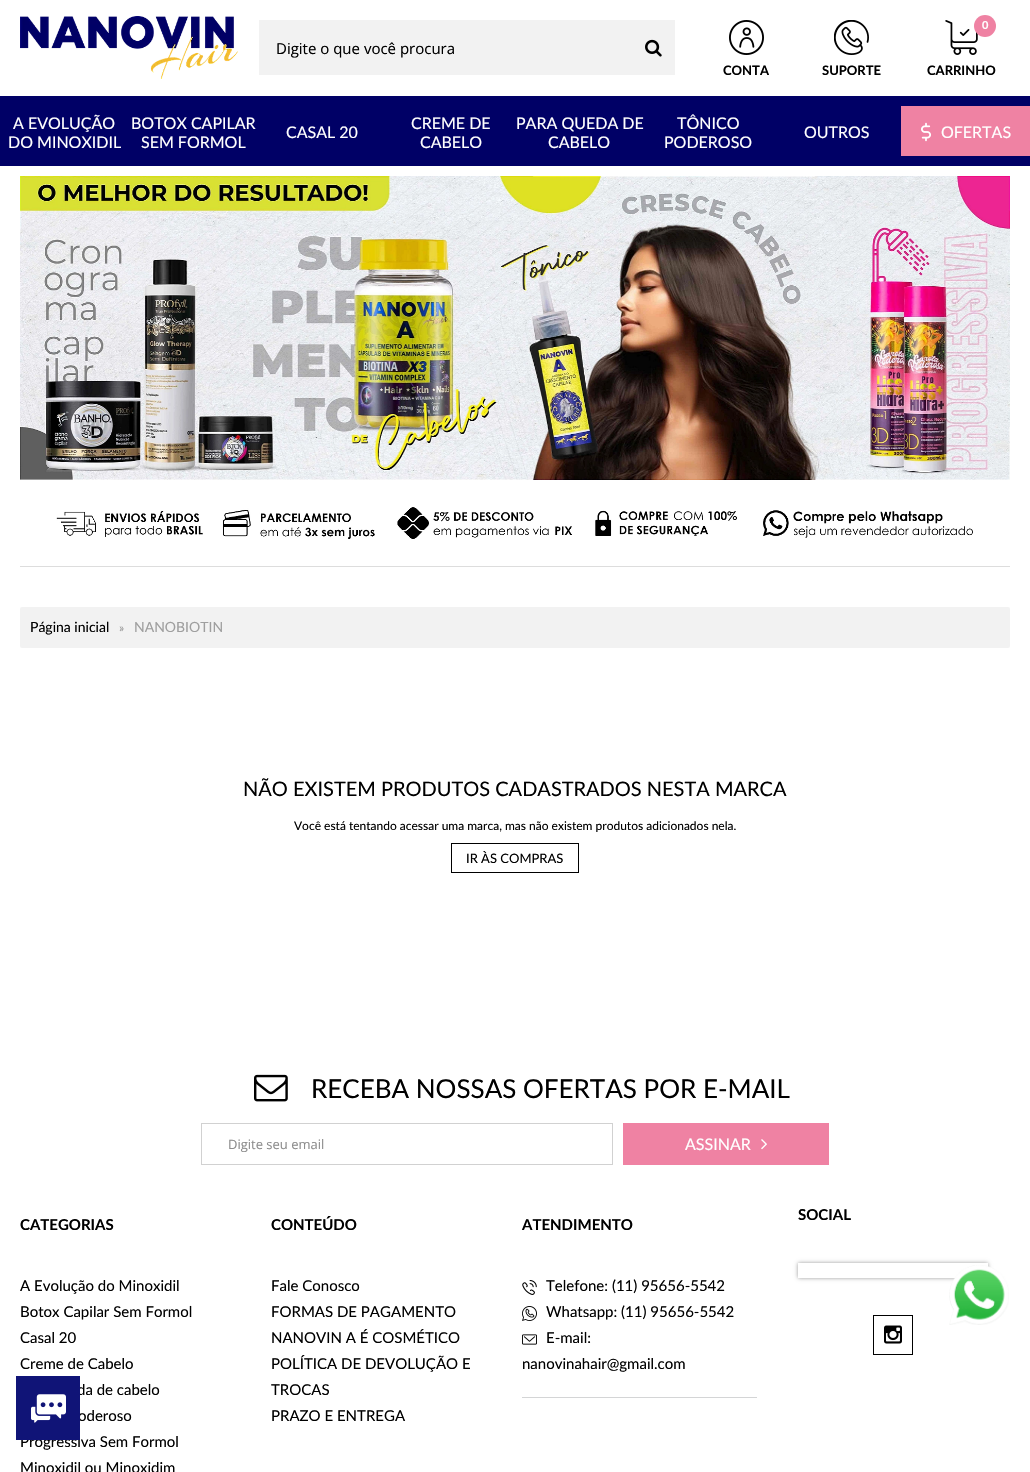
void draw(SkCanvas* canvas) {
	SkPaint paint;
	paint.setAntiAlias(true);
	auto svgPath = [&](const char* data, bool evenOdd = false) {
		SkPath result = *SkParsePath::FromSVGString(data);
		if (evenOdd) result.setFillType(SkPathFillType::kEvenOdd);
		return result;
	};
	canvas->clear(0xffffffff);
	canvas->drawImageRect(SkImages::DeferredFromEncodedData(SkData::MakeFromFileName("img1.png")), SkRect::MakeXYWH(20, 16, 218, 63), SkSamplingOptions());
	paint.setColor(0xfff2f2f2);
	canvas->drawRect(SkRect::MakeXYWH(259, 20, 416, 55), paint);
	SkFont f1(fontMgr->matchFamilyStyle("Open Sans", SkFontStyle::Normal()), 15);
	f1.setSubpixel(true);
	paint.setColor(0xff000000);
	canvas->drawString("Digite o que você procura", 276, 54, f1, paint);
	canvas->drawImageRect(SkImages::DeferredFromEncodedData(SkData::MakeFromFileName("img2.png")), SkRect::MakeXYWH(645, 39, 17, 18), SkSamplingOptions());
	canvas->drawImageRect(SkImages::DeferredFromEncodedData(SkData::MakeFromFileName("img3.png")), SkRect::MakeXYWH(729, 20, 35, 35), SkSamplingOptions());
	SkFont f2(fontMgr->matchFamilyStyle("Lato", SkFontStyle::Bold()), 13);
	f2.setSubpixel(true);
	canvas->drawString("CONTA", 723, 75, f2, paint);
	canvas->drawImageRect(SkImages::DeferredFromEncodedData(SkData::MakeFromFileName("img4.png")), SkRect::MakeXYWH(834, 20, 35, 35), SkSamplingOptions());
	canvas->drawString("SUPORTE", 822, 75, f2, paint);
	canvas->drawImageRect(SkImages::DeferredFromEncodedData(SkData::MakeFromFileName("img5.png")), SkRect::MakeXYWH(945, 20, 33, 35), SkSamplingOptions());
	paint.setColor(0xffef82a3);
	canvas->drawCircle(985, 26, 11, paint);
	SkFont f3(fontMgr->matchFamilyStyle("Lato", SkFontStyle::Bold()), 11);
	f3.setSubpixel(true);
	paint.setColor(0xffffffff);
	canvas->drawString("0", 982, 29, f3, paint);
	paint.setColor(0xff000000);
	canvas->drawString("CARRINHO", 927, 75, f2, paint);
	paint.setColor(0xff000066);
	canvas->drawRect(SkRect::MakeXYWH(0, 96, 1030, 70), paint);
	SkFont f4(fontMgr->matchFamilyStyle("Lato", SkFontStyle::Normal()), 16);
	f4.setSubpixel(true);
	paint.setColor(0xffffffff);
	canvas->drawString("A EVOLUÇÃO", 13, 129, f4, paint);
	canvas->drawString("DO MINOXIDIL", 8, 148, f4, paint);
	canvas->drawString("BOTOX CAPILAR", 131, 129, f4, paint);
	canvas->drawString("SEM FORMOL", 141, 148, f4, paint);
	canvas->drawString("CASAL 20", 286, 138, f4, paint);
	canvas->drawString("CREME DE", 411, 129, f4, paint);
	canvas->drawString("CABELO", 420, 148, f4, paint);
	canvas->drawString("PARA QUEDA DE", 516, 129, f4, paint);
	canvas->drawString("CABELO", 548, 148, f4, paint);
	canvas->drawString("TÔNICO", 677, 129, f4, paint);
	canvas->drawString("PODEROSO", 664, 148, f4, paint);
	canvas->drawString("OUTROS", 804, 138, f4, paint);
	paint.setColor(0xffef82a3);
	canvas->drawRect(SkRect::MakeXYWH(901, 106, 129, 50), paint);
	canvas->drawImageRect(SkImages::DeferredFromEncodedData(SkData::MakeFromFileName("img6.png")), SkRect::MakeXYWH(921, 122, 10, 20), SkSamplingOptions());
	paint.setColor(0xffffffff);
	canvas->drawString("OFERTAS", 941, 138, f4, paint);
	canvas->drawImageRect(SkImages::DeferredFromEncodedData(SkData::MakeFromFileName("img7.png")), SkRect::MakeXYWH(20, 176, 990, 304), SkSamplingOptions());
	paint.setColor(0xffdddddd);
	canvas->drawRect(SkRect::MakeXYWH(20, 566, 990, 1), paint);
	canvas->drawImageRect(SkImages::DeferredFromEncodedData(SkData::MakeFromFileName("img8.png")), SkRect::MakeXYWH(56, 507, 917, 32), SkSamplingOptions());
	paint.setColor(0xfff2f2f2);
	canvas->drawRoundRect(SkRect::MakeXYWH(20, 607, 990, 41), 2, 2, paint);
	SkFont f5(fontMgr->matchFamilyStyle("Lato", SkFontStyle::Normal()), 14);
	f5.setSubpixel(true);
	paint.setColor(0xff000000);
	canvas->drawString("Página inicial", 30, 632, f5, paint);
	SkFont f6(fontMgr->matchFamilyStyle("Lato", SkFontStyle::Normal()), 12);
	f6.setSubpixel(true);
	paint.setColor(0xff999999);
	canvas->drawString("»", 119, 632, f6, paint);
	paint.setColor(0xff9f9f9f);
	canvas->drawString("NANOBIOTIN", 134, 632, f5, paint);
	SkFont f7(fontMgr->matchFamilyStyle("Lato", SkFontStyle::Normal()), 20);
	f7.setSubpixel(true);
	paint.setColor(0xff000000);
	canvas->drawString("NÃO EXISTEM PRODUTOS CADASTRADOS NESTA MARCA", 243, 796, f7, paint);
	canvas->drawString("Você está tentando acessar uma marca, mas não existem produtos adicionados nela.", 294, 830, f6, paint);
	paint.setStroke(true);
	paint.setStrokeWidth(1);
	canvas->drawRect(SkRect::MakeXYWH(451.5, 843.5, 127, 29), paint);
	SkFont f8(fontMgr->matchFamilyStyle("Lato", SkFontStyle::Normal()), 13);
	f8.setSubpixel(true);
	paint.setStroke(false);
	canvas->drawString("IR ÀS COMPRAS", 466, 863, f8, paint);
	canvas->drawImageRect(SkImages::DeferredFromEncodedData(SkData::MakeFromFileName("img9.png")), SkRect::MakeXYWH(254, 1074, 34, 28), SkSamplingOptions());
	SkFont f9(fontMgr->matchFamilyStyle("Lato", SkFontStyle::Normal()), 26);
	f9.setSubpixel(true);
	canvas->drawString("RECEBA NOSSAS OFERTAS POR E-MAIL", 311, 1098, f9, paint);
	paint.setStroke(true);
	paint.setColor(0xffd1d1d1);
	canvas->drawRect(SkRect::MakeXYWH(201.5, 1123.5, 411, 41), paint);
	SkFont f10(fontMgr->matchFamilyStyle("Open Sans", SkFontStyle::Normal()), 13);
	f10.setSubpixel(true);
	paint.setStroke(false);
	paint.setColor(0xff8d8d8d);
	canvas->drawString("Digite seu email", 228, 1149, f10, paint);
	paint.setColor(0xffef82a3);
	canvas->drawRect(SkRect::MakeXYWH(623, 1123, 206, 42), paint);
	paint.setColor(0xffffffff);
	canvas->drawString("ASSINAR", 685, 1150, f4, paint);
	canvas->drawImageRect(SkImages::DeferredFromEncodedData(SkData::MakeFromFileName("img10.png")), SkRect::MakeXYWH(761, 1139, 6, 11), SkSamplingOptions());
	SkFont f11(fontMgr->matchFamilyStyle("Lato", SkFontStyle::Bold()), 15);
	f11.setSubpixel(true);
	paint.setColor(0xff000000);
	canvas->drawString("CATEGORIAS", 20, 1230, f11, paint);
	SkFont f12(fontMgr->matchFamilyStyle("Lato", SkFontStyle::Normal()), 15);
	f12.setSubpixel(true);
	canvas->drawString("A Evolução do Minoxidil", 20, 1291, f12, paint);
	canvas->drawString("Botox Capilar Sem Formol", 20, 1317, f12, paint);
	canvas->drawString("Casal 20", 20, 1343, f12, paint);
	canvas->drawString("Creme de Cabelo", 20, 1369, f12, paint);
	canvas->drawString("da de cabelo", 77, 1395, f12, paint);
	canvas->drawString("oderoso", 78, 1421, f12, paint);
	canvas->drawString("Progressiva Sem Formol", 20, 1447, f12, paint);
	canvas->drawString("Minoxidil ou Minoxidim", 20, 1473, f12, paint);
	canvas->drawString("CONTEÚDO", 271, 1230, f11, paint);
	canvas->drawString("Fale Conosco", 271, 1291, f12, paint);
	canvas->drawString("FORMAS DE PAGAMENTO", 271, 1317, f12, paint);
	canvas->drawString("NANOVIN A É COSMÉTICO", 271, 1343, f12, paint);
	canvas->drawString("POLÍTICA DE DEVOLUÇÃO E", 271, 1369, f12, paint);
	canvas->drawString("TROCAS", 271, 1395, f12, paint);
	canvas->drawString("PRAZO E ENTREGA", 271, 1421, f12, paint);
	canvas->drawString("ATENDIMENTO", 522, 1230, f11, paint);
	paint.setColor(0xffd4d5d6);
	canvas->drawRect(SkRect::MakeXYWH(522, 1397, 235, 1), paint);
	canvas->drawImageRect(SkImages::DeferredFromEncodedData(SkData::MakeFromFileName("img11.png")), SkRect::MakeXYWH(522, 1280, 15, 15), SkSamplingOptions());
	paint.setColor(0xff000000);
	canvas->drawString("Telefone: (11) 95656-5542", 546, 1291, f12, paint);
	canvas->drawImageRect(SkImages::DeferredFromEncodedData(SkData::MakeFromFileName("img12.png")), SkRect::MakeXYWH(522, 1306, 15, 15), SkSamplingOptions());
	canvas->drawString("Whatsapp: (11) 95656-5542", 546, 1317, f12, paint);
	canvas->drawImageRect(SkImages::DeferredFromEncodedData(SkData::MakeFromFileName("img13.png")), SkRect::MakeXYWH(522, 1334, 15, 11), SkSamplingOptions());
	canvas->drawString("E-mail:", 546, 1343, f12, paint);
	canvas->drawString("nanovinahair@gmail.com", 522, 1369, f12, paint);
	canvas->drawString("SOCIAL", 798, 1220, f11, paint);
	canvas->save();
	canvas->clipPath(svgPath("M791 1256H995V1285H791ZM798 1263H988V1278H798Z", true), true);
	paint.setColor(0x66000000);
	paint.setMaskFilter(SkMaskFilter::MakeBlur(kNormal_SkBlurStyle, 2));
	canvas->drawRect(SkRect::MakeXYWH(798, 1263, 190, 15), paint);
	paint.setMaskFilter(nullptr);
	canvas->restore();
	paint.setStroke(true);
	paint.setColor(0xff000000);
	canvas->drawRect(SkRect::MakeXYWH(873.5, 1315.5, 39, 39), paint);
	canvas->drawImageRect(SkImages::DeferredFromEncodedData(SkData::MakeFromFileName("img14.png")), SkRect::MakeXYWH(884, 1325, 18, 19), SkSamplingOptions());
	canvas->drawImageRect(SkImages::DeferredFromEncodedData(SkData::MakeFromFileName("img15.png")), SkRect::MakeXYWH(949, 1265, 60, 60), SkSamplingOptions());
	paint.setStroke(false);
	paint.setColor(0xff101477);
	canvas->drawRect(SkRect::MakeXYWH(16, 1376, 64, 64), paint);
	canvas->drawImageRect(SkImages::DeferredFromEncodedData(SkData::MakeFromFileName("img16.png")), SkRect::MakeXYWH(31, 1394, 35, 29), SkSamplingOptions());
}
